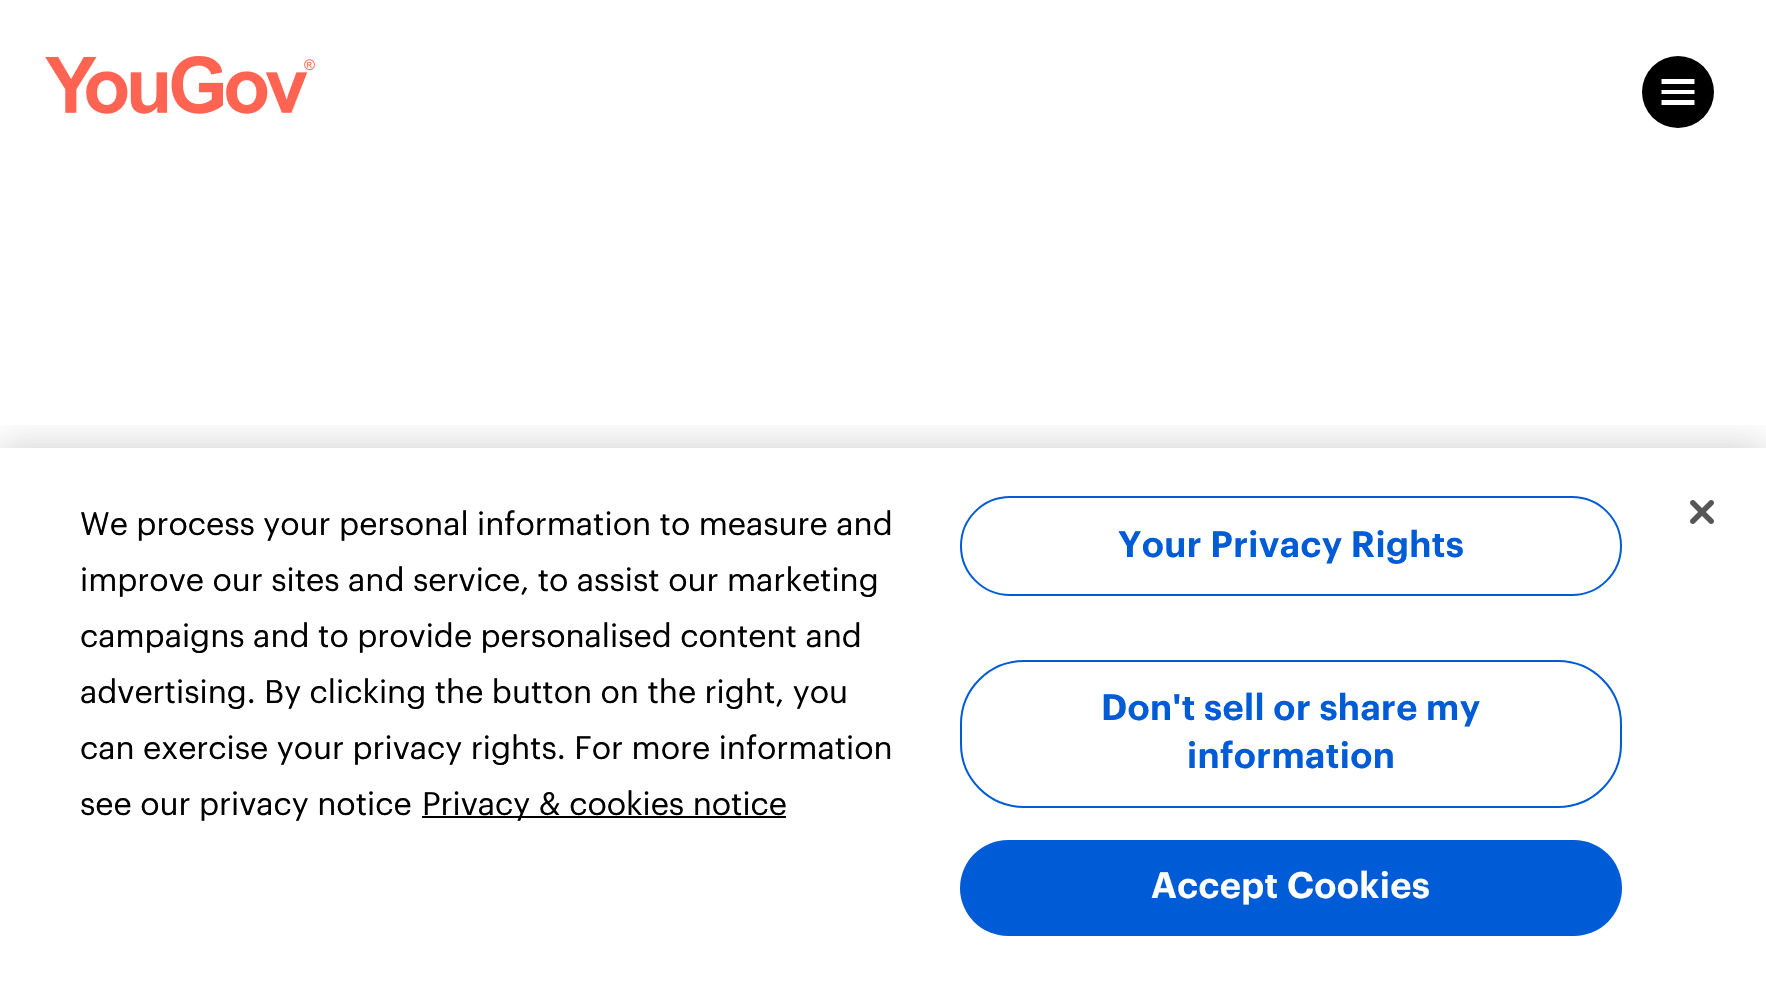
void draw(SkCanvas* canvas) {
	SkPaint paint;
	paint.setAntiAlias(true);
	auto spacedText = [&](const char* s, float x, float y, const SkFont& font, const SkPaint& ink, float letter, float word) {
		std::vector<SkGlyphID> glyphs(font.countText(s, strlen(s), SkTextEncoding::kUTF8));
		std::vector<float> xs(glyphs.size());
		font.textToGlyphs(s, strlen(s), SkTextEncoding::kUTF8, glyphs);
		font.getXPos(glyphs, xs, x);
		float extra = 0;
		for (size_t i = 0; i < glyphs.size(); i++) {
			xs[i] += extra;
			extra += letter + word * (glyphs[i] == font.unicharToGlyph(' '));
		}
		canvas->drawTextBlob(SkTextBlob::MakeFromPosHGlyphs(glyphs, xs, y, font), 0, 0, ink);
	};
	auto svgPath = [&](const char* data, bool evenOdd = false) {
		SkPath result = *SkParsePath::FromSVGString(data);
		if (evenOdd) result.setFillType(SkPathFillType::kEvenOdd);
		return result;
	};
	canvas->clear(0xffffffff);
	canvas->drawImageRect(SkImages::DeferredFromEncodedData(SkData::MakeFromFileName("img1.png")), SkRect::MakeXYWH(45, 56, 270, 58), SkSamplingOptions());
	paint.setColor(0xff000000);
	canvas->drawCircle(1678, 92, 36, paint);
	paint.setColor(0xffffffff);
	canvas->drawPath(svgPath("M1694.5 100V105H1661.5V100ZM1694.5 90V94H1661.5V90ZM1694.5 79V84H1661.5V79Z"), paint);
	canvas->save();
	canvas->clipRect(SkRect::MakeXYWH(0, 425, 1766, 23));
	paint.setColor(0x33000000);
	paint.setMaskFilter(SkMaskFilter::MakeBlur(kNormal_SkBlurStyle, 18));
	canvas->drawRect(SkRect::MakeXYWH(0, 448, 1766, 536), paint);
	paint.setMaskFilter(nullptr);
	canvas->restore();
	SkFont f1(fontMgr->matchFamilyStyle("Graphik", SkFontStyle::Normal()), 32);
	f1.setSubpixel(true);
	paint.setColor(0xff000000);
	canvas->drawString("We process your personal information to measure and", 80, 535, f1, paint);
	canvas->drawString("improve our sites and service, to assist our marketing", 80, 591, f1, paint);
	canvas->drawString("campaigns and to provide personalised content and", 80, 647, f1, paint);
	canvas->drawString("advertising. By clicking the button on the right, you", 80, 703, f1, paint);
	canvas->drawString("can exercise your privacy rights. For more information", 80, 759, f1, paint);
	canvas->drawString("see our privacy notice", 80, 815, f1, paint);
	canvas->drawRect(SkRect::MakeXYWH(422, 816, 364, 2), paint);
	canvas->drawString("Privacy & cookies notice", 422, 815, f1, paint);
	paint.setStroke(true);
	paint.setStrokeWidth(2);
	paint.setColor(0xff005bd7);
	canvas->drawRoundRect(SkRect::MakeXYWH(961, 497, 660, 98), 49, 49, paint);
	SkFont f2(fontMgr->matchFamilyStyle("Graphik", SkFontStyle(600, SkFontStyle::kNormal_Width, SkFontStyle::kUpright_Slant)), 36);
	f2.setSubpixel(true);
	paint.setStroke(false);
	spacedText("Your Privacy Rights", 1118, 557, f2, paint, 0.4, 0);
	paint.setStroke(true);
	canvas->drawRoundRect(SkRect::MakeXYWH(961, 661, 660, 146), 63, 63, paint);
	paint.setStroke(false);
	spacedText("Don't sell or share my", 1101, 720, f2, paint, 0.4, 0);
	spacedText("information", 1187, 768, f2, paint, 0.4, 0);
	canvas->drawRoundRect(SkRect::MakeXYWH(960, 840, 662, 96), 48, 48, paint);
	paint.setColor(0xffffffff);
	spacedText("Accept Cookies", 1151, 898, f2, paint, 0.4, 0);
	canvas->drawImageRect(SkImages::DeferredFromEncodedData(SkData::MakeFromFileName("img2.png")), SkRect::MakeXYWH(1690, 500, 24, 24), SkSamplingOptions());
}
